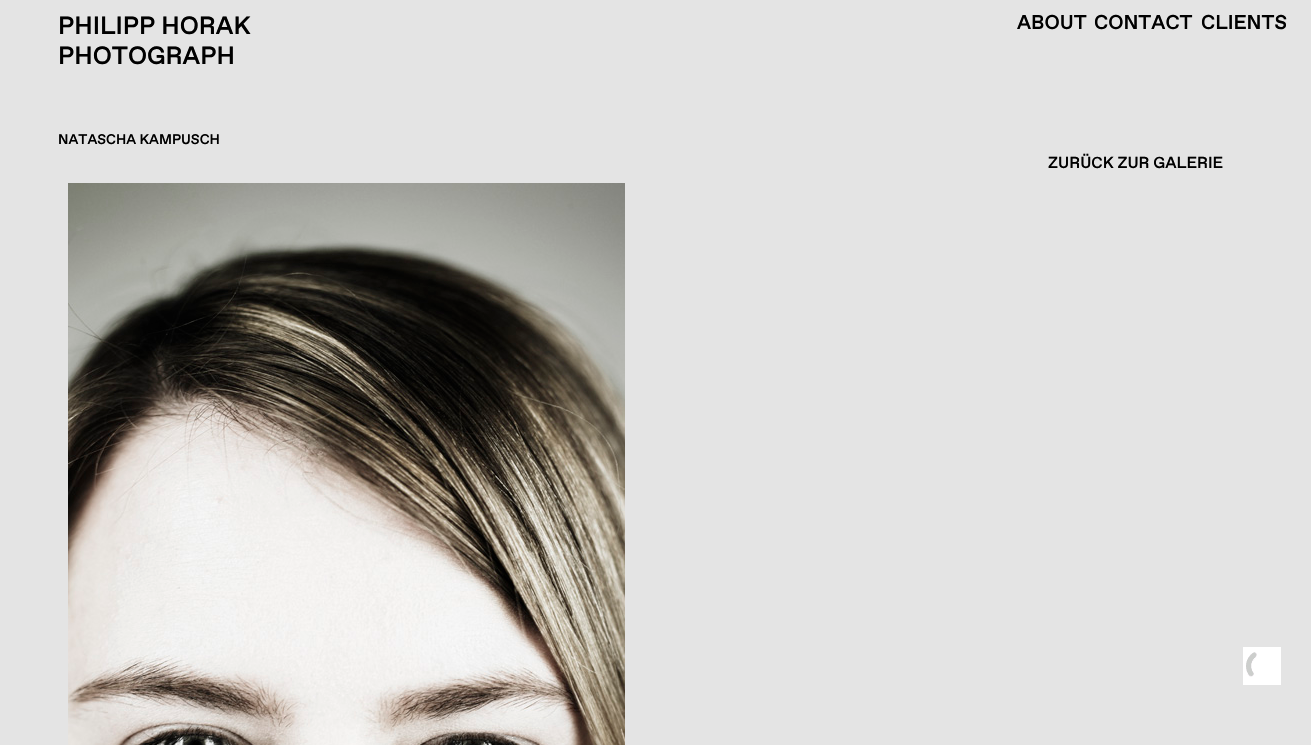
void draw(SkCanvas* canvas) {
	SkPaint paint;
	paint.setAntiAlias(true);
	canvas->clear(0xffe4e4e4);
	SkFont f1(fontMgr->matchFamilyStyle("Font", SkFontStyle(500, SkFontStyle::kNormal_Width, SkFontStyle::kUpright_Slant)), 25);
	f1.setSubpixel(true);
	paint.setColor(0xff000000);
	canvas->drawString("PHILIPP HORAK", 58, 34, f1, paint);
	canvas->drawString("PHOTOGRAPH", 58, 64, f1, paint);
	SkFont f2(fontMgr->matchFamilyStyle("Font", SkFontStyle(500, SkFontStyle::kNormal_Width, SkFontStyle::kUpright_Slant)), 20);
	f2.setSubpixel(true);
	canvas->drawString("ABOUT", 1017, 29, f2, paint);
	canvas->drawString("CONTACT", 1094, 29, f2, paint);
	canvas->drawString("CLIENTS", 1201, 29, f2, paint);
	SkFont f3(fontMgr->matchFamilyStyle("Font", SkFontStyle(500, SkFontStyle::kNormal_Width, SkFontStyle::kUpright_Slant)), 14);
	f3.setSubpixel(true);
	canvas->drawString("NATASCHA KAMPUSCH", 58, 144, f3, paint);
	SkFont f4(fontMgr->matchFamilyStyle("Font", SkFontStyle(500, SkFontStyle::kNormal_Width, SkFontStyle::kUpright_Slant)), 16);
	f4.setSubpixel(true);
	canvas->drawString("ZURÜCK ZUR GALERIE", 1048, 168, f4, paint);
	canvas->drawImageRect(SkImages::DeferredFromEncodedData(SkData::MakeFromFileName("img1.png")), SkRect::MakeXYWH(68, 183, 557, 562), SkSamplingOptions());
	paint.setColor(0xffffffff);
	canvas->drawRect(SkRect::MakeXYWH(1243, 647, 38, 38), paint);
	canvas->drawImageRect(SkImages::DeferredFromEncodedData(SkData::MakeFromFileName("img2.png")), SkRect::MakeXYWH(1246, 652, 11, 25), SkSamplingOptions());
}
